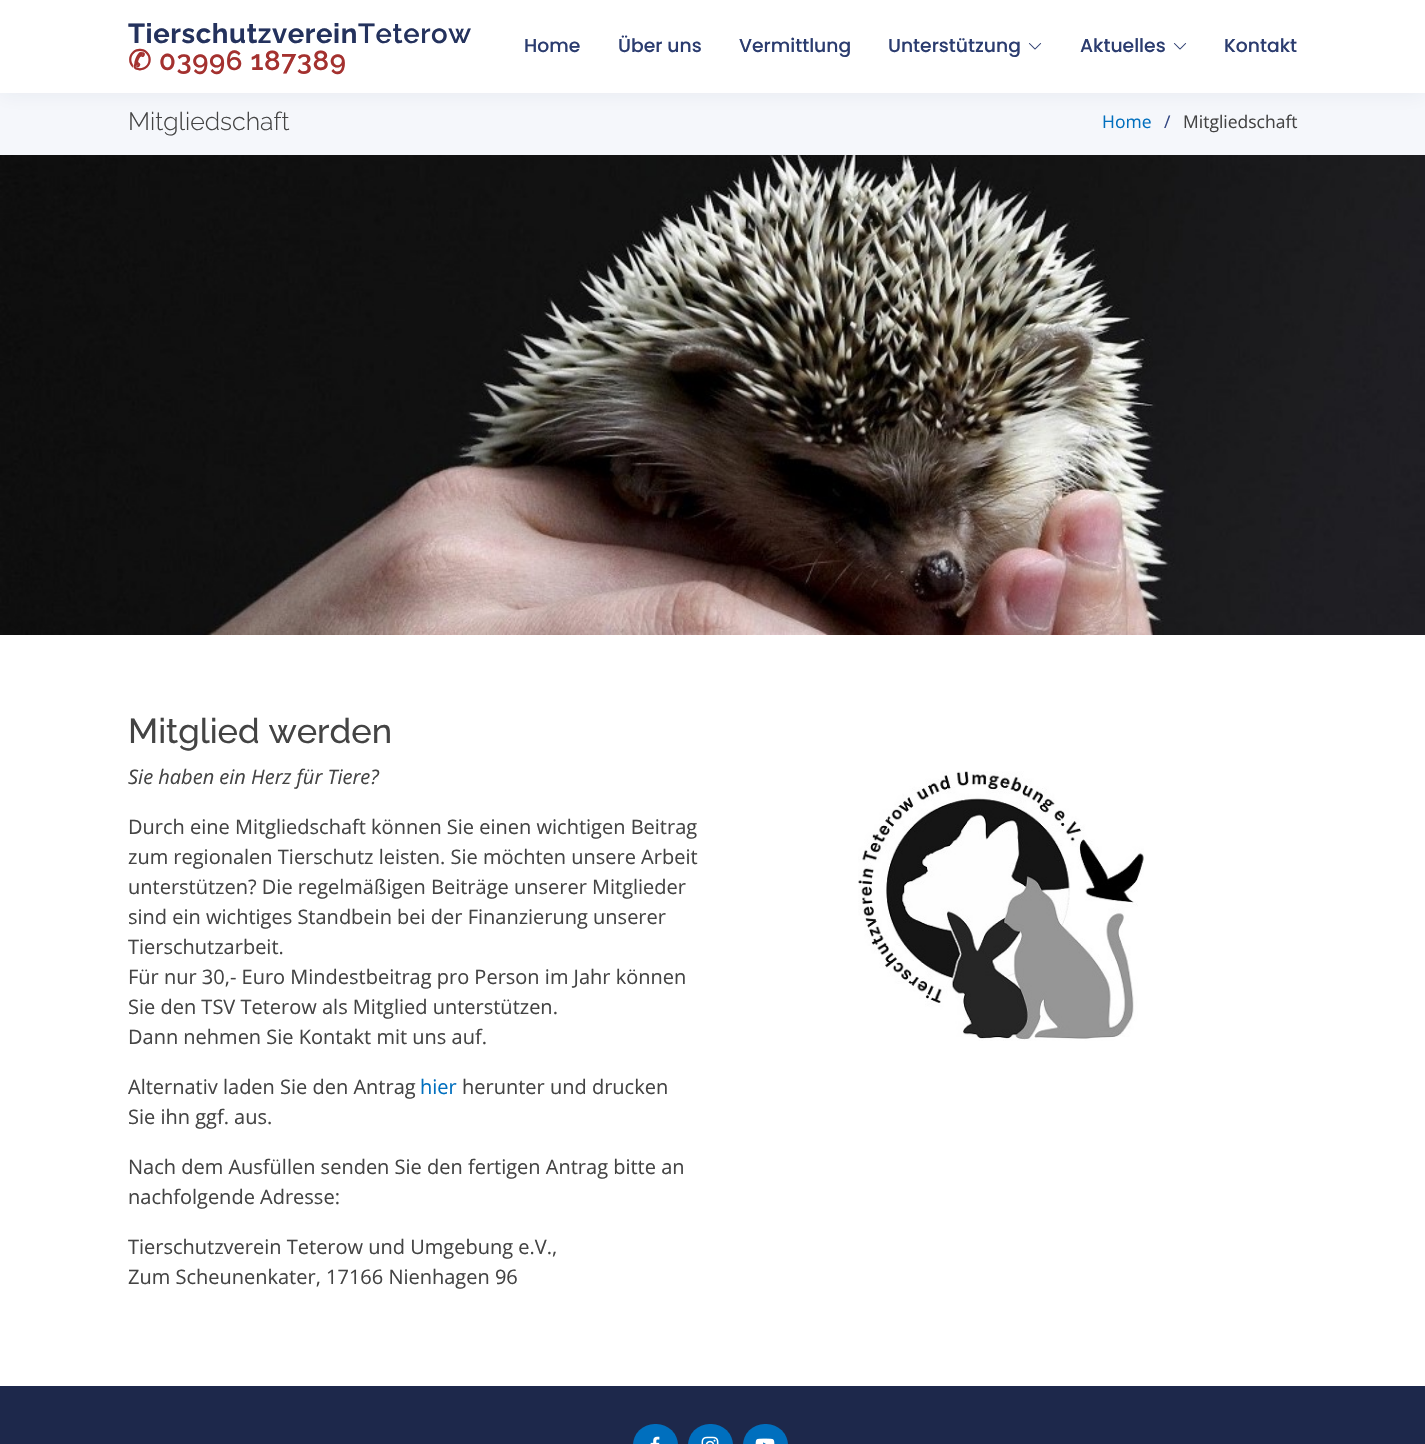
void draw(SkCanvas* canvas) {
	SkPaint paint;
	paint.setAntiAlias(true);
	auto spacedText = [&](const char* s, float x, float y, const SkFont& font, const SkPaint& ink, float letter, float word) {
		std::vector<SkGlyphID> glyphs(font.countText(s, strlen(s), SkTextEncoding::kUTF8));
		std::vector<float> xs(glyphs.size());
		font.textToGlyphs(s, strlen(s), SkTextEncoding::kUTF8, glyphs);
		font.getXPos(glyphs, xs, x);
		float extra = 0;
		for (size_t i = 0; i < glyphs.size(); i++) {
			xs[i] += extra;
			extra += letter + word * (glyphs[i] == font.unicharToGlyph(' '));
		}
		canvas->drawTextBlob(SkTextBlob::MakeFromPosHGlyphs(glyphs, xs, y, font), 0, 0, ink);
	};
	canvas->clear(0xffffffff);
	paint.setColor(0xfff5f7fb);
	canvas->drawRect(SkRect::MakeXYWH(0, 93, 1425, 62), paint);
	paint.setColor(0x0f24325d);
	paint.setMaskFilter(SkMaskFilter::MakeBlur(kNormal_SkBlurStyle, 9.5));
	canvas->drawRect(SkRect::MakeXYWH(0, 3, 1425, 92), paint);
	paint.setMaskFilter(nullptr);
	paint.setColor(0xffffffff);
	canvas->drawRect(SkRect::MakeXYWH(0, 0, 1425, 93), paint);
	SkFont f1(fontMgr->matchFamilyStyle("Raleway", SkFontStyle::Bold()), 27.5);
	f1.setSubpixel(true);
	paint.setColor(0xff24325d);
	spacedText("Tierschutzverein", 128, 43, f1, paint, 0.6, 0);
	SkFont f2(fontMgr->matchFamilyStyle("Raleway", SkFontStyle(600, SkFontStyle::kNormal_Width, SkFontStyle::kUpright_Slant)), 27.5);
	f2.setSubpixel(true);
	spacedText("Teterow", 358, 43, f2, paint, 0.6, 0);
	SkFont f3(fontMgr->matchFamilyStyle("DejaVu Sans", SkFontStyle::Bold()), 27.5);
	f3.setSubpixel(true);
	paint.setColor(0xffa4312f);
	spacedText("✆", 128, 70, f3, paint, 0.6, 0);
	spacedText("03996 187389", 159, 70, f2, paint, 0.6, 0);
	SkFont f4(fontMgr->matchFamilyStyle("Poppins", SkFontStyle(500, SkFontStyle::kNormal_Width, SkFontStyle::kUpright_Slant)), 18.75);
	f4.setSubpixel(true);
	paint.setColor(0xff2b3c6f);
	canvas->drawString("Home", 524, 52, f4, paint);
	canvas->drawString("Über uns", 618, 52, f4, paint);
	canvas->drawString("Vermittlung", 739, 52, f4, paint);
	canvas->drawString("Unterstützung", 888, 52, f4, paint);
	canvas->drawImageRect(SkImages::DeferredFromEncodedData(SkData::MakeFromFileName("img1.png")), SkRect::MakeXYWH(1028, 43, 14, 7), SkSamplingOptions());
	canvas->drawString("Aktuelles", 1080, 52, f4, paint);
	canvas->drawImageRect(SkImages::DeferredFromEncodedData(SkData::MakeFromFileName("img1.png")), SkRect::MakeXYWH(1173, 43, 14, 7), SkSamplingOptions());
	canvas->drawString("Kontakt", 1224, 52, f4, paint);
	SkFont f5(fontMgr->matchFamilyStyle("Raleway", SkFontStyle(300, SkFontStyle::kNormal_Width, SkFontStyle::kUpright_Slant)), 25);
	f5.setSubpixel(true);
	paint.setColor(0xff444444);
	canvas->drawString("Mitgliedschaft", 128, 130, f5, paint);
	SkFont f6(fontMgr->matchFamilyStyle("Open Sans", SkFontStyle::Normal()), 17.5);
	f6.setSubpixel(true);
	paint.setColor(0xff006fbe);
	canvas->drawString("Home", 1102, 128, f6, paint);
	paint.setColor(0xff324682);
	canvas->drawString("/", 1164, 128, f6, paint);
	paint.setColor(0xff444444);
	canvas->drawString("Mitgliedschaft", 1183, 128, f6, paint);
	canvas->drawImageRect(SkImages::DeferredFromEncodedData(SkData::MakeFromFileName("img2.png")), SkRect::MakeXYWH(0, 155, 1425, 480), SkSamplingOptions());
	SkFont f7(fontMgr->matchFamilyStyle("Raleway", SkFontStyle(500, SkFontStyle::kNormal_Width, SkFontStyle::kUpright_Slant)), 34.5);
	f7.setSubpixel(true);
	canvas->drawString("Mitglied werden", 128, 743, f7, paint);
	SkFont f8(fontMgr->matchFamilyStyle("Open Sans", SkFontStyle::Italic()), 20);
	f8.setSubpixel(true);
	canvas->drawString("Sie haben ein Herz für Tiere?", 128, 784, f8, paint);
	SkFont f9(fontMgr->matchFamilyStyle("Open Sans", SkFontStyle::Normal()), 20);
	f9.setSubpixel(true);
	canvas->drawString("Durch eine Mitgliedschaft können Sie einen wichtigen Beitrag", 128, 834, f9, paint);
	canvas->drawString("zum regionalen Tierschutz leisten. Sie möchten unsere Arbeit", 128, 864, f9, paint);
	canvas->drawString("unterstützen? Die regelmäßigen Beiträge unserer Mitglieder", 128, 894, f9, paint);
	canvas->drawString("sind ein wichtiges Standbein bei der Finanzierung unserer", 128, 924, f9, paint);
	canvas->drawString("Tierschutzarbeit.", 128, 954, f9, paint);
	canvas->drawString("Für nur 30,- Euro Mindestbeitrag pro Person im Jahr können", 128, 984, f9, paint);
	canvas->drawString("Sie den TSV Teterow als Mitglied unterstützen.", 128, 1014, f9, paint);
	canvas->drawString("Dann nehmen Sie Kontakt mit uns auf.", 128, 1044, f9, paint);
	canvas->drawString("Alternativ laden Sie den Antrag", 128, 1094, f9, paint);
	paint.setColor(0xff006fbe);
	canvas->drawString("hier", 420, 1094, f9, paint);
	paint.setColor(0xff444444);
	canvas->drawString("herunter und drucken", 462, 1094, f9, paint);
	canvas->drawString("Sie ihn ggf. aus.", 128, 1124, f9, paint);
	canvas->drawString("Nach dem Ausfüllen senden Sie den fertigen Antrag bitte an", 128, 1174, f9, paint);
	canvas->drawString("nachfolgende Adresse:", 128, 1204, f9, paint);
	canvas->drawString("Tierschutzverein Teterow und Umgebung e.V.,", 128, 1254, f9, paint);
	canvas->drawString("Zum Scheunenkater, 17166 Nienhagen 96", 128, 1284, f9, paint);
	canvas->drawImageRect(SkImages::DeferredFromEncodedData(SkData::MakeFromFileName("img3.png")), SkRect::MakeXYWH(858, 771, 286, 270), SkSamplingOptions());
	paint.setColor(0xff1d284b);
	canvas->drawRect(SkRect::MakeXYWH(0, 1386, 1425, 58), paint);
	paint.setColor(0xff006fbe);
	canvas->drawRoundRect(SkRect::MakeXYWH(633, 1424, 45, 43), 22.5, 22.5, paint);
	canvas->drawImageRect(SkImages::DeferredFromEncodedData(SkData::MakeFromFileName("img4.png")), SkRect::MakeXYWH(650, 1436, 10, 8), SkSamplingOptions());
	canvas->drawRoundRect(SkRect::MakeXYWH(688, 1424, 45, 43), 22.5, 22.5, paint);
	canvas->drawImageRect(SkImages::DeferredFromEncodedData(SkData::MakeFromFileName("img5.png")), SkRect::MakeXYWH(701, 1436, 18, 8), SkSamplingOptions());
	canvas->drawRoundRect(SkRect::MakeXYWH(743, 1424, 45, 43), 22.5, 22.5, paint);
	canvas->drawImageRect(SkImages::DeferredFromEncodedData(SkData::MakeFromFileName("img6.png")), SkRect::MakeXYWH(755, 1438, 20, 6), SkSamplingOptions());
}
